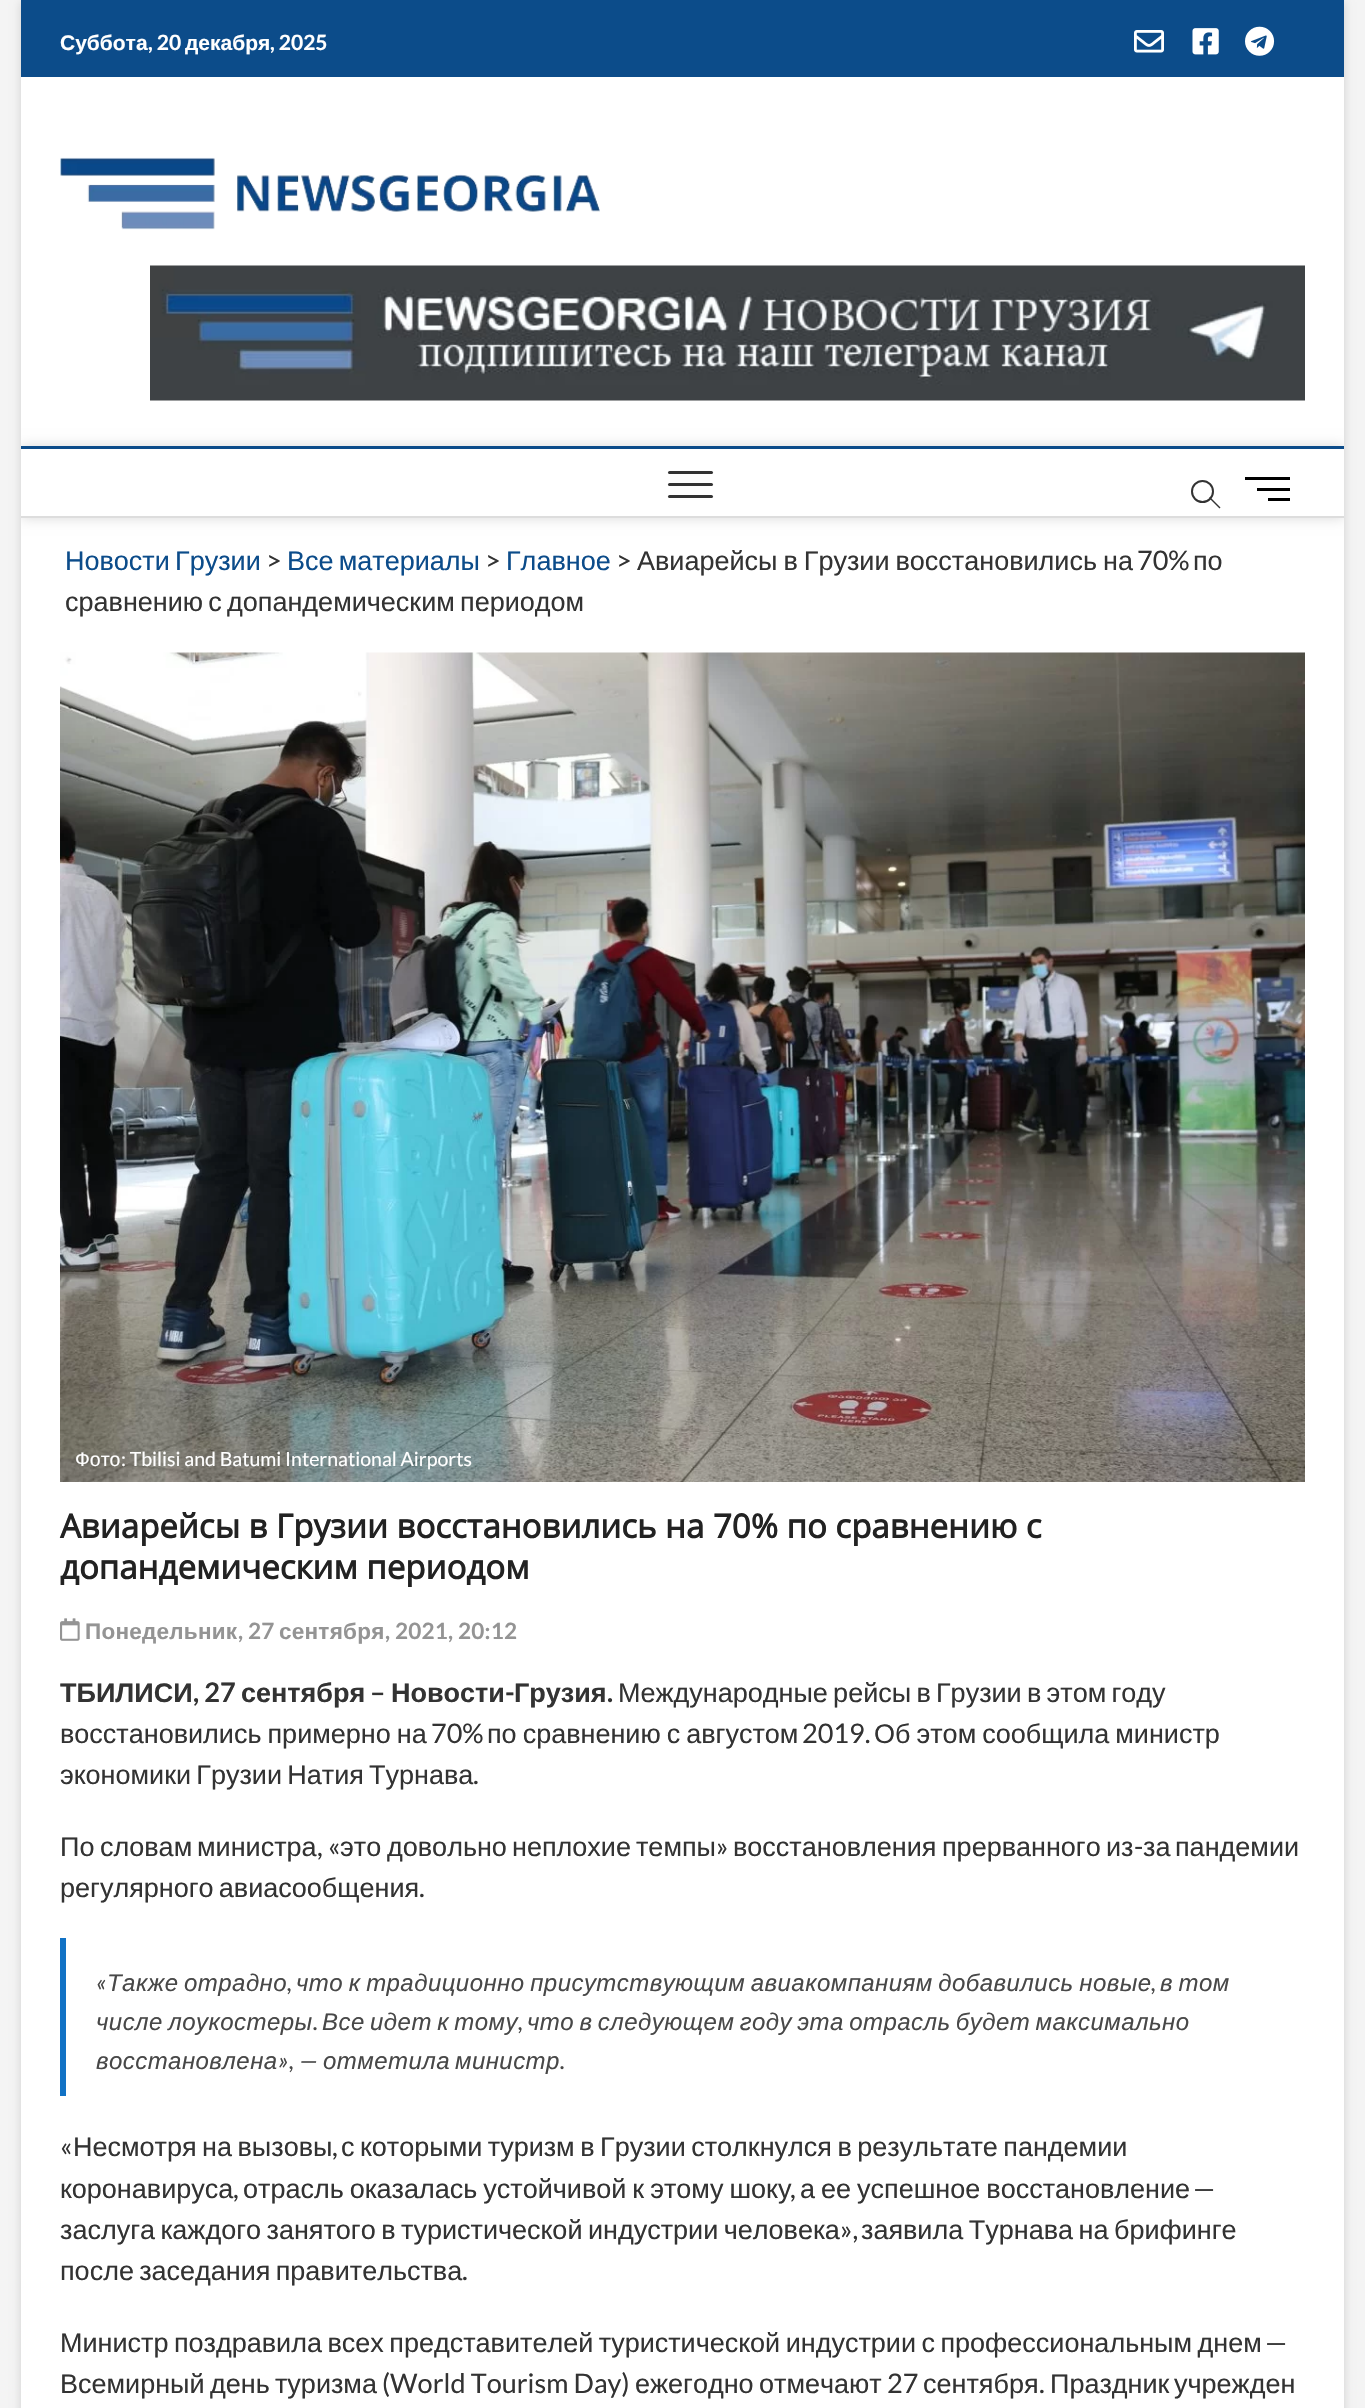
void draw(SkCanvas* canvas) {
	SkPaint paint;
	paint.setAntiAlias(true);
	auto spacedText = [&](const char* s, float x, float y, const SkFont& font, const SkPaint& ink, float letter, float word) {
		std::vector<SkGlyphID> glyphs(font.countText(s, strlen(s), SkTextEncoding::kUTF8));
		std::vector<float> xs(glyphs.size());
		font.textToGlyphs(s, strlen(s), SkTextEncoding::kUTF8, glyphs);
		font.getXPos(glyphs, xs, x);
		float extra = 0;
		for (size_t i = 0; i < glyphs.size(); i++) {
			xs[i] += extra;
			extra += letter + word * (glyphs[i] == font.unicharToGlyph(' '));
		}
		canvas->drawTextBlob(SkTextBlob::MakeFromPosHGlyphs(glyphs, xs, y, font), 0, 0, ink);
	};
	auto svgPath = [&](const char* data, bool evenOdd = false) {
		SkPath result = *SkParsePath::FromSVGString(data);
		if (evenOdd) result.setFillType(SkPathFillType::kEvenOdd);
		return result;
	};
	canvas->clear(0xfff4f4f4);
	paint.setColor(0x26000000);
	paint.setMaskFilter(SkMaskFilter::MakeBlur(kNormal_SkBlurStyle, 4.5));
	canvas->drawRect(SkRect::MakeXYWH(21, 2, 1323, 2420), paint);
	paint.setMaskFilter(nullptr);
	paint.setColor(0xffffffff);
	canvas->drawRect(SkRect::MakeXYWH(21, 77, 1323, 2331), paint);
	paint.setColor(0xff0c4c8a);
	canvas->drawRect(SkRect::MakeXYWH(21, 0, 1323, 77), paint);
	SkFont f1(fontMgr->matchFamilyStyle("Liberation Sans", SkFontStyle::Bold()), 21);
	f1.setSubpixel(true);
	paint.setColor(0xffffffff);
	canvas->drawString("Суббота", 60, 50, f1, paint);
	SkFont f2(fontMgr->matchFamilyStyle("Lato", SkFontStyle::Bold()), 21);
	f2.setSubpixel(true);
	canvas->drawString(", 20", 148, 50, f2, paint);
	canvas->drawString("декабря", 185, 50, f1, paint);
	canvas->drawString(", 2025", 270, 50, f2, paint);
	canvas->drawImageRect(SkImages::DeferredFromEncodedData(SkData::MakeFromFileName("img1.png")), SkRect::MakeXYWH(1134, 30, 30, 23), SkSamplingOptions());
	canvas->drawImageRect(SkImages::DeferredFromEncodedData(SkData::MakeFromFileName("img2.png")), SkRect::MakeXYWH(1192, 28, 27, 27), SkSamplingOptions());
	canvas->drawImageRect(SkImages::DeferredFromEncodedData(SkData::MakeFromFileName("img3.png")), SkRect::MakeXYWH(1245, 26, 30, 30), SkSamplingOptions());
	canvas->drawImageRect(SkImages::DeferredFromEncodedData(SkData::MakeFromFileName("img4.png")), SkRect::MakeXYWH(60, 157, 540, 73), SkSamplingOptions());
	canvas->drawImageRect(SkImages::DeferredFromEncodedData(SkData::MakeFromFileName("img5.png")), SkRect::MakeXYWH(150, 265, 1155, 136), SkSamplingOptions());
	canvas->save();
	canvas->clipRect(SkRect::MakeXYWH(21, 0, 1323, 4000));
	paint.setColor(0x26000000);
	paint.setMaskFilter(SkMaskFilter::MakeBlur(kNormal_SkBlurStyle, 6));
	canvas->drawRect(SkRect::MakeXYWH(21, 446, 1323, 72), paint);
	paint.setMaskFilter(nullptr);
	canvas->restore();
	paint.setColor(0xffffffff);
	canvas->drawRect(SkRect::MakeXYWH(21, 449, 1323, 67), paint);
	paint.setColor(0xff0c4c8a);
	canvas->drawRect(SkRect::MakeXYWH(21, 446, 1323, 3), paint);
	paint.setColor(0xffdddddd);
	canvas->drawRect(SkRect::MakeXYWH(21, 516, 1323, 2), paint);
	paint.setColor(0xff333333);
	canvas->drawRoundRect(SkRect::MakeXYWH(668, 483, 45, 3), 1.5, 1.5, paint);
	canvas->drawRoundRect(SkRect::MakeXYWH(668, 471, 45, 3), 1.5, 1.5, paint);
	canvas->drawRoundRect(SkRect::MakeXYWH(668, 495, 45, 3), 1.5, 1.5, paint);
	paint.setStroke(true);
	paint.setStrokeWidth(2);
	canvas->drawCircle(1202.5, 491.5, 10.5, paint);
	paint.setStroke(false);
	canvas->drawPath(svgPath("M1209 498L1210 497L1220.5 507.5L1219.5 508.5Z"), paint);
	paint.setColor(0xff000000);
	canvas->drawRect(SkRect::MakeXYWH(1257, 488, 33, 3), paint);
	canvas->drawRect(SkRect::MakeXYWH(1245, 477, 45, 3), paint);
	canvas->drawRect(SkRect::MakeXYWH(1268, 498, 22, 3), paint);
	SkFont f3(fontMgr->matchFamilyStyle("Liberation Sans", SkFontStyle::Normal()), 27);
	f3.setSubpixel(true);
	paint.setColor(0xff0c4c8a);
	spacedText("Новости Грузии", 65, 570, f3, paint, 0, -2.25);
	SkFont f4(fontMgr->matchFamilyStyle("Lato", SkFontStyle::Normal()), 27);
	f4.setSubpixel(true);
	paint.setColor(0xff333333);
	canvas->drawString(">", 266, 570, f4, paint);
	paint.setColor(0xff0c4c8a);
	spacedText("Все материалы", 287, 570, f3, paint, 0, -2.25);
	paint.setColor(0xff333333);
	canvas->drawString(">", 485, 570, f4, paint);
	paint.setColor(0xff0c4c8a);
	canvas->drawString("Главное", 506, 570, f3, paint);
	paint.setColor(0xff333333);
	canvas->drawString(">", 616, 570, f4, paint);
	spacedText("Авиарейсы в Грузии восстановились на", 637, 570, f3, paint, 0, -1.5);
	canvas->drawString("70%", 1137, 570, f4, paint);
	canvas->drawString("по", 1193, 570, f3, paint);
	spacedText("сравнению с допандемическим периодом", 65, 611, f3, paint, 0, -2.25);
	canvas->drawImageRect(SkImages::DeferredFromEncodedData(SkData::MakeFromFileName("img6.png")), SkRect::MakeXYWH(60, 652, 1245, 830), SkSamplingOptions());
	SkFont f5(fontMgr->matchFamilyStyle("Liberation Sans", SkFontStyle::Normal()), 19.5);
	f5.setSubpixel(true);
	paint.setColor(0xffffffff);
	canvas->drawString("Фото", 75, 1466, f5, paint);
	SkFont f6(fontMgr->matchFamilyStyle("Lato", SkFontStyle::Normal()), 19.5);
	f6.setSubpixel(true);
	canvas->drawString(": Tbilisi and Batumi International Airports", 121, 1466, f6, paint);
	SkFont f7(fontMgr->matchFamilyStyle("Open Sans", SkFontStyle::Bold()), 33);
	f7.setSubpixel(true);
	paint.setColor(0xff222222);
	canvas->drawString("Авиарейсы в Грузии восстановились на 70% по сравнению с", 60, 1538, f7, paint);
	canvas->drawString("допандемическим периодом", 60, 1579, f7, paint);
	canvas->drawImageRect(SkImages::DeferredFromEncodedData(SkData::MakeFromFileName("img7.png")), SkRect::MakeXYWH(60, 1618, 20, 23), SkSamplingOptions());
	SkFont f8(fontMgr->matchFamilyStyle("Liberation Sans", SkFontStyle::Bold()), 22.5);
	f8.setSubpixel(true);
	paint.setColor(0xff949494);
	spacedText("Понедельник", 85, 1639, f8, paint, 0.25, 0);
	SkFont f9(fontMgr->matchFamilyStyle("Lato", SkFontStyle::Bold()), 22.5);
	f9.setSubpixel(true);
	spacedText(", 27", 238, 1639, f9, paint, 0.25, 0);
	spacedText("сентября", 279, 1639, f8, paint, 0.25, 0);
	spacedText(", 2021, 20:12", 385, 1639, f9, paint, 0.25, 0);
	SkFont f10(fontMgr->matchFamilyStyle("Liberation Sans", SkFontStyle::Bold()), 27);
	f10.setSubpixel(true);
	paint.setColor(0xff333333);
	canvas->drawString("ТБИЛИСИ", 60, 1702, f10, paint);
	SkFont f11(fontMgr->matchFamilyStyle("Lato", SkFontStyle::Bold()), 27);
	f11.setSubpixel(true);
	canvas->drawString(", 27", 193, 1702, f11, paint);
	canvas->drawString("сентября", 241, 1702, f10, paint);
	canvas->drawString("–", 370, 1702, f11, paint);
	canvas->drawString("Новости", 391, 1702, f10, paint);
	canvas->drawString("-", 505, 1702, f11, paint);
	canvas->drawString("Грузия", 514, 1702, f10, paint);
	spacedText("Международные рейсы в Грузии в этом году", 618, 1702, f3, paint, 0, -2.25);
	canvas->drawString(".", 607, 1702, f11, paint);
	spacedText("восстановились примерно на", 60, 1743, f3, paint, 0, -1.5);
	canvas->drawString("70%", 431, 1743, f4, paint);
	spacedText("по сравнению с августом", 487, 1743, f3, paint, 0, -1.5);
	canvas->drawString("2019.", 802, 1743, f4, paint);
	spacedText("Об этом сообщила министр", 874, 1743, f3, paint, 0, -1.5);
	spacedText("экономики Грузии Натия Турнава", 60, 1784, f3, paint, 0, -2.25);
	canvas->drawString(".", 473, 1784, f4, paint);
	canvas->drawString("По", 60, 1856, f3, paint);
	canvas->drawString("словам", 100, 1856, f3, paint);
	canvas->drawString("министра", 197, 1856, f3, paint);
	canvas->drawString(", «", 317, 1856, f4, paint);
	canvas->drawString("это", 340, 1856, f3, paint);
	canvas->drawString("довольно", 387, 1856, f3, paint);
	canvas->drawString("неплохие", 512, 1856, f3, paint);
	canvas->drawString("темпы", 636, 1856, f3, paint);
	canvas->drawString("»", 716, 1856, f4, paint);
	canvas->drawString("восстановления", 733, 1856, f3, paint);
	canvas->drawString("прерванного", 942, 1856, f3, paint);
	canvas->drawString("из", 1106, 1856, f3, paint);
	canvas->drawString("-", 1134, 1856, f4, paint);
	canvas->drawString("за", 1143, 1856, f3, paint);
	canvas->drawString("пандемии", 1175, 1856, f3, paint);
	spacedText("регулярного авиасообщения", 60, 1897, f3, paint, 0, -2.25);
	canvas->drawString(".", 419, 1897, f4, paint);
	paint.setColor(0xff1172c5);
	canvas->drawRect(SkRect::MakeXYWH(60, 1938, 6, 158), paint);
	SkFont f12(fontMgr->matchFamilyStyle("Lato", SkFontStyle::Italic()), 24);
	f12.setSubpixel(true);
	paint.setColor(0xff484848);
	spacedText("«", 96, 1991, f12, paint, 0.45, 0);
	SkFont f13(fontMgr->matchFamilyStyle("Liberation Sans", SkFontStyle::Italic()), 24);
	f13.setSubpixel(true);
	spacedText("Также отрадно", 107, 1991, f13, paint, 0.45, -1.5);
	spacedText("что к традиционно присутствующим авиакомпаниям добавились новые", 296, 1991, f13, paint, 0.45, -1.5);
	spacedText("в том", 1160, 1991, f13, paint, 0.45, -1.5);
	spacedText(",", 287, 1991, f12, paint, 0.45, 0);
	spacedText(",", 1151, 1991, f12, paint, 0.45, 0);
	spacedText("числе лоукостеры", 96, 2030, f13, paint, 0.45, -1.75);
	spacedText(".", 313, 2030, f12, paint, 0.45, 0);
	spacedText("Все идет к тому", 322, 2030, f13, paint, 0.45, -1.75);
	spacedText(",", 518, 2030, f12, paint, 0.45, 0);
	spacedText("что в следующем году эта отрасль будет максимально", 527, 2030, f13, paint, 0.45, -1.75);
	spacedText("восстановлена", 96, 2069, f13, paint, 0.45, 0);
	spacedText("», —", 278, 2069, f12, paint, 0.45, 0);
	spacedText("отметила", 323, 2069, f13, paint, 0.45, 0);
	spacedText("министр", 455, 2069, f13, paint, 0.45, 0);
	spacedText(".", 560, 2069, f12, paint, 0.45, 0);
	paint.setColor(0xff333333);
	canvas->drawString("«", 60, 2156, f4, paint);
	spacedText("Несмотря на вызовы", 73, 2156, f3, paint, 0, -2);
	spacedText("с которыми туризм в Грузии столкнулся в результате пандемии", 341, 2156, f3, paint, 0, -2);
	canvas->drawString(",", 332, 2156, f4, paint);
	canvas->drawString("коронавируса", 60, 2198, f3, paint);
	spacedText("отрасль оказалась устойчивой к этому шоку", 243, 2198, f3, paint, 0, -1.5);
	spacedText("а ее успешное восстановление", 800, 2198, f3, paint, 0, -1.5);
	canvas->drawString("—", 1193, 2198, f4, paint);
	canvas->drawString(",", 233, 2198, f4, paint);
	canvas->drawString(",", 790, 2198, f4, paint);
	spacedText("заслуга каждого занятого в туристической индустрии человека", 60, 2239, f3, paint, 0, -2);
	canvas->drawString("»,", 840, 2239, f4, paint);
	spacedText("заявила Турнава на брифинге", 861, 2239, f3, paint, 0, -2);
	spacedText("после заседания правительства", 60, 2280, f3, paint, 0, -2.25);
	canvas->drawString(".", 462, 2280, f4, paint);
	spacedText("Министр поздравила всех представителей туристической индустрии с профессиональным днем", 60, 2352, f3, paint, 0, -2);
	canvas->drawString("—", 1265, 2352, f4, paint);
	canvas->drawString("Всемирный", 60, 2393, f3, paint);
	canvas->drawString("день", 210, 2393, f3, paint);
	canvas->drawString("туризма", 275, 2393, f3, paint);
	canvas->drawString("(World Tourism Day)", 382, 2393, f4, paint);
	canvas->drawString("ежегодно", 635, 2393, f3, paint);
	canvas->drawString("отмечают", 759, 2393, f3, paint);
	canvas->drawString("27", 887, 2393, f4, paint);
	canvas->drawString("сентября", 923, 2393, f3, paint);
	canvas->drawString(".", 1039, 2393, f4, paint);
	canvas->drawString("Праздник", 1050, 2393, f3, paint);
	canvas->drawString("учрежден", 1174, 2393, f3, paint);
}
